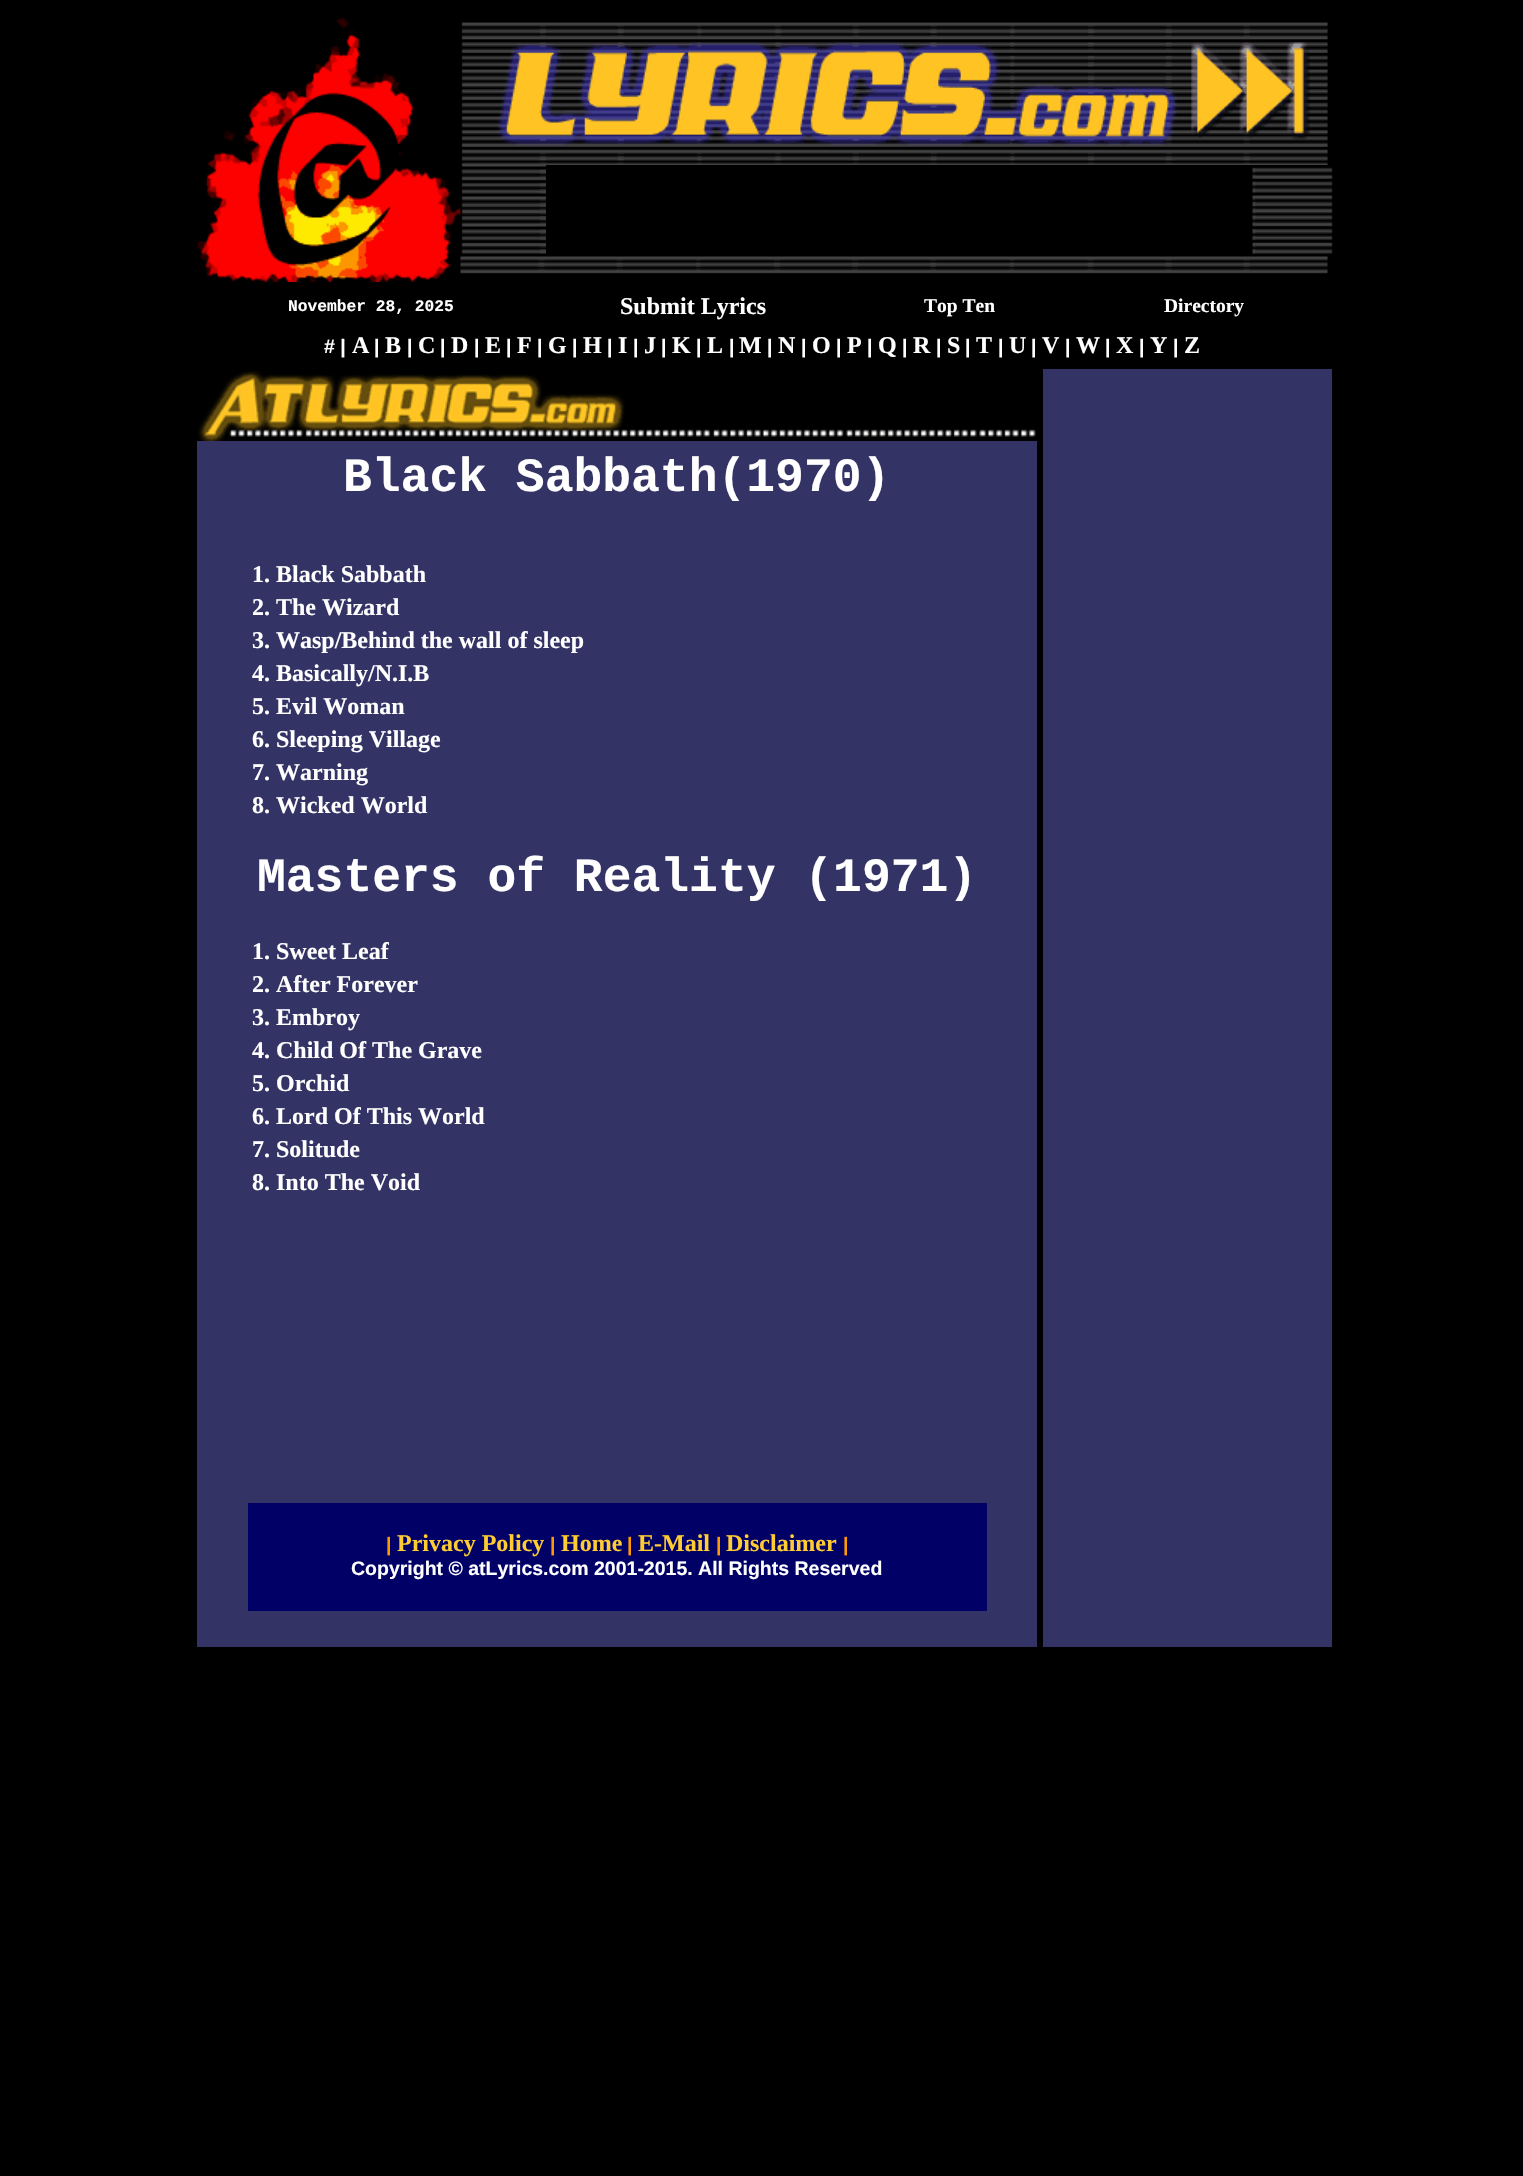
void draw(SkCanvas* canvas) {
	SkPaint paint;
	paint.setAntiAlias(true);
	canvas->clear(0xff000000);
	canvas->drawImageRect(SkImages::DeferredFromEncodedData(SkData::MakeFromFileName("img1.png")), SkRect::MakeXYWH(196, 17, 265, 265), SkSamplingOptions());
	canvas->drawImageRect(SkImages::DeferredFromEncodedData(SkData::MakeFromFileName("img2.png")), SkRect::MakeXYWH(461, 22, 867, 143), SkSamplingOptions());
	canvas->drawImageRect(SkImages::DeferredFromEncodedData(SkData::MakeFromFileName("img3.png")), SkRect::MakeXYWH(460, 165, 86, 89), SkSamplingOptions());
	canvas->drawImageRect(SkImages::DeferredFromEncodedData(SkData::MakeFromFileName("img4.png")), SkRect::MakeXYWH(1252, 167, 81, 87), SkSamplingOptions());
	canvas->drawImageRect(SkImages::DeferredFromEncodedData(SkData::MakeFromFileName("img5.png")), SkRect::MakeXYWH(460, 256, 868, 18), SkSamplingOptions());
	SkFont f1(fontMgr->matchFamilyStyle("Liberation Mono", SkFontStyle::Bold()), 16.25);
	f1.setSubpixel(true);
	paint.setColor(0xffffffff);
	canvas->drawString("November 28, 2025", 288, 311, f1, paint);
	SkFont f2(fontMgr->matchFamilyStyle("Liberation Serif", SkFontStyle::Bold()), 24);
	f2.setSubpixel(true);
	canvas->drawString("Submit Lyrics", 620, 314, f2, paint);
	SkFont f3(fontMgr->matchFamilyStyle("Liberation Serif", SkFontStyle::Bold()), 19.5);
	f3.setSubpixel(true);
	canvas->drawString("Top Ten", 924, 312, f3, paint);
	canvas->drawString("Directory", 1164, 312, f3, paint);
	SkFont f4(fontMgr->matchFamilyStyle("Liberation Sans", SkFontStyle::Bold()), 19.5);
	f4.setSubpixel(true);
	canvas->drawString("# |", 324, 353, f4, paint);
	canvas->drawString("A", 352, 353, f2, paint);
	canvas->drawString("|", 374, 353, f4, paint);
	canvas->drawString("B", 385, 353, f2, paint);
	canvas->drawString("|", 407, 353, f4, paint);
	canvas->drawString("C", 418, 353, f2, paint);
	canvas->drawString("|", 440, 353, f4, paint);
	canvas->drawString("D", 451, 353, f2, paint);
	canvas->drawString("|", 474, 353, f4, paint);
	canvas->drawString("E", 485, 353, f2, paint);
	canvas->drawString("|", 506, 353, f4, paint);
	canvas->drawString("F", 517, 353, f2, paint);
	canvas->drawString("|", 537, 353, f4, paint);
	canvas->drawString("G", 548, 353, f2, paint);
	canvas->drawString("|", 572, 353, f4, paint);
	canvas->drawString("H", 583, 353, f2, paint);
	canvas->drawString("|", 607, 353, f4, paint);
	canvas->drawString("I", 618, 353, f2, paint);
	canvas->drawString("|", 633, 353, f4, paint);
	canvas->drawString("J", 644, 353, f2, paint);
	canvas->drawString("|", 661, 353, f4, paint);
	canvas->drawString("K", 672, 353, f2, paint);
	canvas->drawString("|", 696, 353, f4, paint);
	canvas->drawString("L", 707, 353, f2, paint);
	canvas->drawString("|", 729, 353, f4, paint);
	canvas->drawString("M", 739, 353, f2, paint);
	canvas->drawString("|", 767, 353, f4, paint);
	canvas->drawString("N", 778, 353, f2, paint);
	canvas->drawString("|", 801, 353, f4, paint);
	canvas->drawString("O", 812, 353, f2, paint);
	canvas->drawString("|", 836, 353, f4, paint);
	canvas->drawString("P", 847, 353, f2, paint);
	canvas->drawString("|", 867, 353, f4, paint);
	canvas->drawString("Q", 878, 353, f2, paint);
	canvas->drawString("|", 902, 353, f4, paint);
	canvas->drawString("R", 913, 353, f2, paint);
	canvas->drawString("|", 936, 353, f4, paint);
	canvas->drawString("S", 947, 353, f2, paint);
	canvas->drawString("|", 965, 353, f4, paint);
	canvas->drawString("T", 976, 353, f2, paint);
	canvas->drawString("|", 998, 353, f4, paint);
	canvas->drawString("U", 1009, 353, f2, paint);
	canvas->drawString("|", 1031, 353, f4, paint);
	canvas->drawString("V", 1042, 353, f2, paint);
	canvas->drawString("|", 1065, 353, f4, paint);
	canvas->drawString("W", 1076, 353, f2, paint);
	canvas->drawString("|", 1105, 353, f4, paint);
	canvas->drawString("X", 1116, 353, f2, paint);
	canvas->drawString("|", 1139, 353, f4, paint);
	canvas->drawString("Y", 1150, 353, f2, paint);
	canvas->drawString("|", 1173, 353, f4, paint);
	canvas->drawString("Z", 1184, 353, f2, paint);
	canvas->drawImageRect(SkImages::DeferredFromEncodedData(SkData::MakeFromFileName("img6.png")), SkRect::MakeXYWH(198, 370, 838, 71), SkSamplingOptions());
	paint.setColor(0xff333366);
	canvas->drawRect(SkRect::MakeXYWH(197, 441, 840, 1206), paint);
	SkFont f5(fontMgr->matchFamilyStyle("Liberation Mono", SkFontStyle::Bold()), 48);
	f5.setSubpixel(true);
	paint.setColor(0xffffffff);
	canvas->drawString("Black Sabbath(1970)", 343, 491, f5, paint);
	canvas->drawString("1. Black Sabbath", 252, 582, f2, paint);
	canvas->drawString("2. The Wizard", 252, 615, f2, paint);
	canvas->drawString("3. Wasp/Behind the wall of sleep", 252, 648, f2, paint);
	canvas->drawString("4. Basically/N.I.B", 252, 681, f2, paint);
	canvas->drawString("5. Evil Woman", 252, 714, f2, paint);
	canvas->drawString("6. Sleeping Village", 252, 747, f2, paint);
	canvas->drawString("7. Warning", 252, 780, f2, paint);
	canvas->drawString("8. Wicked World", 252, 813, f2, paint);
	canvas->drawString("Masters of Reality (1971)", 257, 891, f5, paint);
	canvas->drawString("1. Sweet Leaf", 252, 959, f2, paint);
	canvas->drawString("2. After Forever", 252, 992, f2, paint);
	canvas->drawString("3. Embroy", 252, 1025, f2, paint);
	canvas->drawString("4. Child Of The Grave", 252, 1058, f2, paint);
	canvas->drawString("5. Orchid", 252, 1091, f2, paint);
	canvas->drawString("6. Lord Of This World", 252, 1124, f2, paint);
	canvas->drawString("7. Solitude", 252, 1157, f2, paint);
	canvas->drawString("8. Into The Void", 252, 1190, f2, paint);
	paint.setColor(0xff000066);
	canvas->drawRect(SkRect::MakeXYWH(248, 1503, 739, 108), paint);
	paint.setColor(0xffff9900);
	canvas->drawString("|", 386, 1551, f4, paint);
	paint.setColor(0xffffcc33);
	canvas->drawString("Privacy Policy", 397, 1551, f2, paint);
	paint.setColor(0xffff9900);
	canvas->drawString("|", 550, 1551, f4, paint);
	paint.setColor(0xffffcc33);
	canvas->drawString("Home", 561, 1551, f2, paint);
	paint.setColor(0xffff9900);
	canvas->drawString("|", 627, 1551, f4, paint);
	paint.setColor(0xffffcc33);
	canvas->drawString("E-Mail", 638, 1551, f2, paint);
	paint.setColor(0xffff9900);
	canvas->drawString("|", 716, 1551, f4, paint);
	paint.setColor(0xffffcc33);
	canvas->drawString("Disclaimer", 726, 1551, f2, paint);
	paint.setColor(0xffff9900);
	canvas->drawString("|", 843, 1551, f4, paint);
	paint.setColor(0xffffffff);
	canvas->drawString("Copyright © atLyrics.com 2001-2015. All Rights Reserved", 351, 1575, f4, paint);
	paint.setColor(0xff333366);
	canvas->drawRect(SkRect::MakeXYWH(1043, 369, 289, 1278), paint);
}
